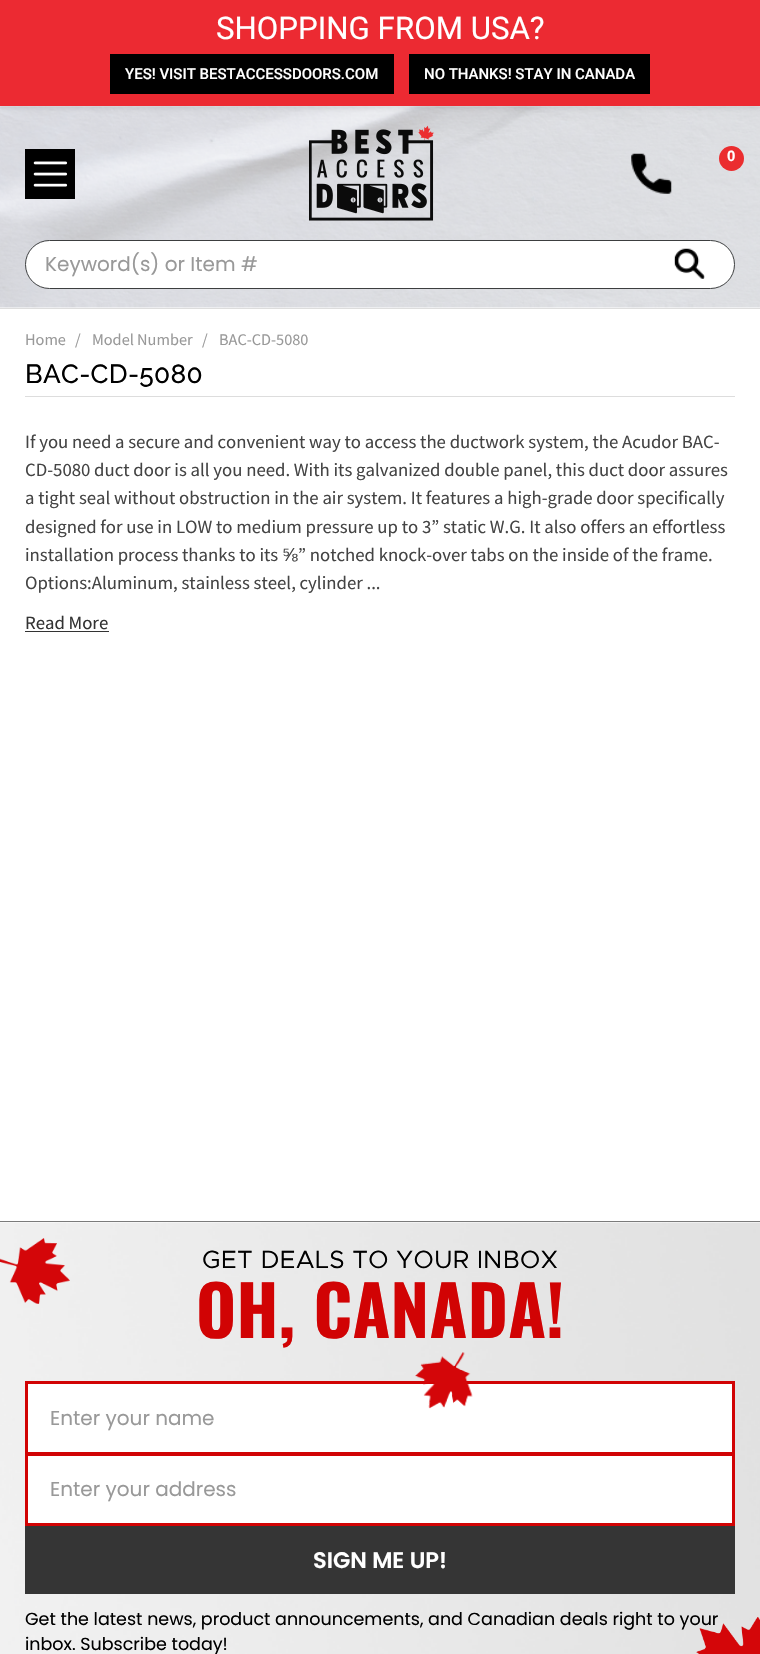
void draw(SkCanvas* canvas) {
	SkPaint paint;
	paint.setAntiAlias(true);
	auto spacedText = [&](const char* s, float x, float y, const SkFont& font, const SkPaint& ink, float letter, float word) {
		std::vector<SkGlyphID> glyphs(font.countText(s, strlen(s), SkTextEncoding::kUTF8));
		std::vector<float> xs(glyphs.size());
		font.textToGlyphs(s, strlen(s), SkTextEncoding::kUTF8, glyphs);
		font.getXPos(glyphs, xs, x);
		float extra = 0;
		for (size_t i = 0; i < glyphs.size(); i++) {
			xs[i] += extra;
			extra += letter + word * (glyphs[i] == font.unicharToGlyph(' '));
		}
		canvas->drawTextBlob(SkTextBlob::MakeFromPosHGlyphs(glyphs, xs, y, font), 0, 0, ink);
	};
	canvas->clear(0xffffffff);
	canvas->drawImageRect(SkImages::DeferredFromEncodedData(SkData::MakeFromFileName("img1.png")), SkRect::MakeXYWH(0, 106, 760, 202), SkSamplingOptions());
	paint.setColor(0x1a000000);
	paint.setMaskFilter(SkMaskFilter::MakeBlur(kNormal_SkBlurStyle, 3));
	canvas->drawRect(SkRect::MakeXYWH(0, 1, 760, 107), paint);
	paint.setMaskFilter(nullptr);
	paint.setColor(0xffec2a32);
	canvas->drawRect(SkRect::MakeXYWH(0, 0, 760, 106), paint);
	SkFont f1(fontMgr->matchFamilyStyle("Roboto", SkFontStyle::Normal()), 31.25);
	f1.setSubpixel(true);
	paint.setColor(0xffffffff);
	canvas->drawString("SHOPPING FROM USA?", 216, 39, f1, paint);
	paint.setColor(0xff000000);
	canvas->drawRect(SkRect::MakeXYWH(110, 54, 284, 40), paint);
	SkFont f2(fontMgr->matchFamilyStyle("Roboto", SkFontStyle(500, SkFontStyle::kNormal_Width, SkFontStyle::kUpright_Slant)), 15);
	f2.setSubpixel(true);
	paint.setColor(0xffffffff);
	canvas->drawString("YES! VISIT BESTACCESSDOORS.COM", 125, 79, f2, paint);
	paint.setColor(0xff000000);
	canvas->drawRect(SkRect::MakeXYWH(409, 54, 241, 40), paint);
	paint.setColor(0xffffffff);
	canvas->drawString("NO THANKS! STAY IN CANADA", 424, 79, f2, paint);
	paint.setColor(0xffdddddd);
	canvas->drawRect(SkRect::MakeXYWH(0, 308, 760, 1), paint);
	paint.setColor(0xff000000);
	canvas->drawRect(SkRect::MakeXYWH(25, 149, 50, 50), paint);
	canvas->drawImageRect(SkImages::DeferredFromEncodedData(SkData::MakeFromFileName("img2.png")), SkRect::MakeXYWH(33, 161, 35, 26), SkSamplingOptions());
	canvas->drawImageRect(SkImages::DeferredFromEncodedData(SkData::MakeFromFileName("img3.png")), SkRect::MakeXYWH(309, 125, 125, 96), SkSamplingOptions());
	canvas->drawImageRect(SkImages::DeferredFromEncodedData(SkData::MakeFromFileName("img4.png")), SkRect::MakeXYWH(631, 153, 41, 41), SkSamplingOptions());
	paint.setColor(0xffeb2d2f);
	canvas->drawCircle(731.5, 158.5, 12.5, paint);
	SkFont f3(fontMgr->matchFamilyStyle("Liberation Sans", SkFontStyle::Bold()), 15);
	f3.setSubpixel(true);
	paint.setColor(0xffffffff);
	canvas->drawString("0", 727, 161, f3, paint);
	canvas->drawRoundRect(SkRect::MakeXYWH(25.5, 240.5, 709, 48), 24, 24, paint);
	paint.setStroke(true);
	paint.setStrokeWidth(1);
	paint.setColor(0xff3c3e3f);
	canvas->drawRoundRect(SkRect::MakeXYWH(25.5, 240.5, 709, 48), 24, 24, paint);
	SkFont f4(fontMgr->matchFamilyStyle("Poppins", SkFontStyle::Normal()), 20);
	f4.setSubpixel(true);
	paint.setStroke(false);
	paint.setColor(0xff999999);
	canvas->drawString("Keyword(s) or Item #", 45, 271, f4, paint);
	canvas->drawImageRect(SkImages::DeferredFromEncodedData(SkData::MakeFromFileName("img5.png")), SkRect::MakeXYWH(674, 248, 31, 31), SkSamplingOptions());
	SkFont f5(fontMgr->matchFamilyStyle("Source Sans Pro", SkFontStyle::Normal()), 16.25);
	f5.setSubpixel(true);
	canvas->drawString("Home", 25, 345, f5, paint);
	canvas->drawString("/", 75, 345, f5, paint);
	canvas->drawString("Model Number", 92, 345, f5, paint);
	canvas->drawString("/", 202, 345, f5, paint);
	canvas->drawString("BAC-CD-5080", 219, 345, f5, paint);
	paint.setColor(0xffdddddd);
	canvas->drawRect(SkRect::MakeXYWH(25, 396, 710, 1), paint);
	SkFont f6(fontMgr->matchFamilyStyle("Raleway", SkFontStyle(500, SkFontStyle::kNormal_Width, SkFontStyle::kUpright_Slant)), 26.25);
	f6.setSubpixel(true);
	paint.setColor(0xff000000);
	spacedText("BAC-CD-5080", 25, 383, f6, paint, 0.3, 0);
	SkFont f7(fontMgr->matchFamilyStyle("Source Sans Pro", SkFontStyle::Normal()), 18.75);
	f7.setSubpixel(true);
	paint.setColor(0xff444444);
	canvas->drawString("If you need a secure and convenient way to access the ductwork system, the Acudor BAC-", 25, 448, f7, paint);
	canvas->drawString("CD-5080 duct door is all you need. With its galvanized double panel, this duct door assures", 25, 476, f7, paint);
	canvas->drawString("a tight seal without obstruction in the air system. It features a high-grade door specifically", 25, 504, f7, paint);
	canvas->drawString("designed for use in LOW to medium pressure up to 3” static W.G. It also offers an effortless", 25, 533, f7, paint);
	canvas->drawString("installation process thanks to its", 25, 561, f7, paint);
	SkFont f8(fontMgr->matchFamilyStyle("Liberation Sans", SkFontStyle::Normal()), 18.75);
	f8.setSubpixel(true);
	canvas->drawString("⅝", 282, 561, f8, paint);
	canvas->drawString("” notched knock-over tabs on the inside of the frame.", 298, 561, f7, paint);
	canvas->drawString("Options:Aluminum, stainless steel, cylinder ...", 25, 589, f7, paint);
	paint.setColor(0xff333333);
	canvas->drawString("Read More", 25, 629, f7, paint);
	canvas->drawRect(SkRect::MakeXYWH(25, 631, 84, 1), paint);
	canvas->drawImageRect(SkImages::DeferredFromEncodedData(SkData::MakeFromFileName("img6.png")), SkRect::MakeXYWH(0, 1222, 760, 432), SkSamplingOptions());
	paint.setColor(0xff7b7b7b);
	canvas->drawRect(SkRect::MakeXYWH(0, 1221, 760, 1), paint);
	canvas->drawImageRect(SkImages::DeferredFromEncodedData(SkData::MakeFromFileName("img7.png")), SkRect::MakeXYWH(0, 1238, 70, 66), SkSamplingOptions());
	SkFont f9(fontMgr->matchFamilyStyle("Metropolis", SkFontStyle::Normal()), 25);
	f9.setSubpixel(true);
	paint.setColor(0xff000000);
	spacedText("GET DEALS TO YOUR INBOX", 202, 1268, f9, paint, 0.3, 0);
	SkFont f10(fontMgr->matchFamilyStyle("Oswald", SkFontStyle::Bold()), 68.75);
	f10.setSubpixel(true);
	paint.setColor(0xffd10304);
	spacedText("OH, CANADA!", 196, 1338, f10, paint, 0.3, 0);
	paint.setColor(0xffffffff);
	canvas->drawRect(SkRect::MakeXYWH(26.5, 1382.5, 707, 71), paint);
	paint.setStroke(true);
	paint.setStrokeWidth(3);
	paint.setColor(0xffd10304);
	canvas->drawRect(SkRect::MakeXYWH(26.5, 1382.5, 707, 71), paint);
	canvas->drawImageRect(SkImages::DeferredFromEncodedData(SkData::MakeFromFileName("img8.png")), SkRect::MakeXYWH(415, 1352, 58, 57), SkSamplingOptions());
	paint.setStroke(false);
	paint.setColor(0xff999999);
	canvas->drawString("Enter your name", 50, 1425, f4, paint);
	paint.setColor(0xffffffff);
	canvas->drawRect(SkRect::MakeXYWH(26.5, 1454.5, 707, 70), paint);
	paint.setStroke(true);
	paint.setColor(0xffd10304);
	canvas->drawRect(SkRect::MakeXYWH(26.5, 1454.5, 707, 70), paint);
	paint.setStroke(false);
	paint.setColor(0xff999999);
	canvas->drawString("Enter your address", 50, 1496, f4, paint);
	paint.setColor(0xff353535);
	canvas->drawRect(SkRect::MakeXYWH(25, 1526, 710, 68), paint);
	SkFont f11(fontMgr->matchFamilyStyle("Poppins", SkFontStyle(600, SkFontStyle::kNormal_Width, SkFontStyle::kUpright_Slant)), 22.5);
	f11.setSubpixel(true);
	paint.setColor(0xffffffff);
	canvas->drawString("SIGN ME UP!", 313, 1568, f11, paint);
	SkFont f12(fontMgr->matchFamilyStyle("Poppins", SkFontStyle::Normal()), 17.5);
	f12.setSubpixel(true);
	paint.setColor(0xff000000);
	canvas->drawString("Get the latest news, product announcements, and Canadian deals right to your", 25, 1625, f12, paint);
	canvas->drawString("inbox. Subscribe today!", 25, 1650, f12, paint);
	canvas->drawImageRect(SkImages::DeferredFromEncodedData(SkData::MakeFromFileName("img9.png")), SkRect::MakeXYWH(696, 1617, 64, 37), SkSamplingOptions());
}
